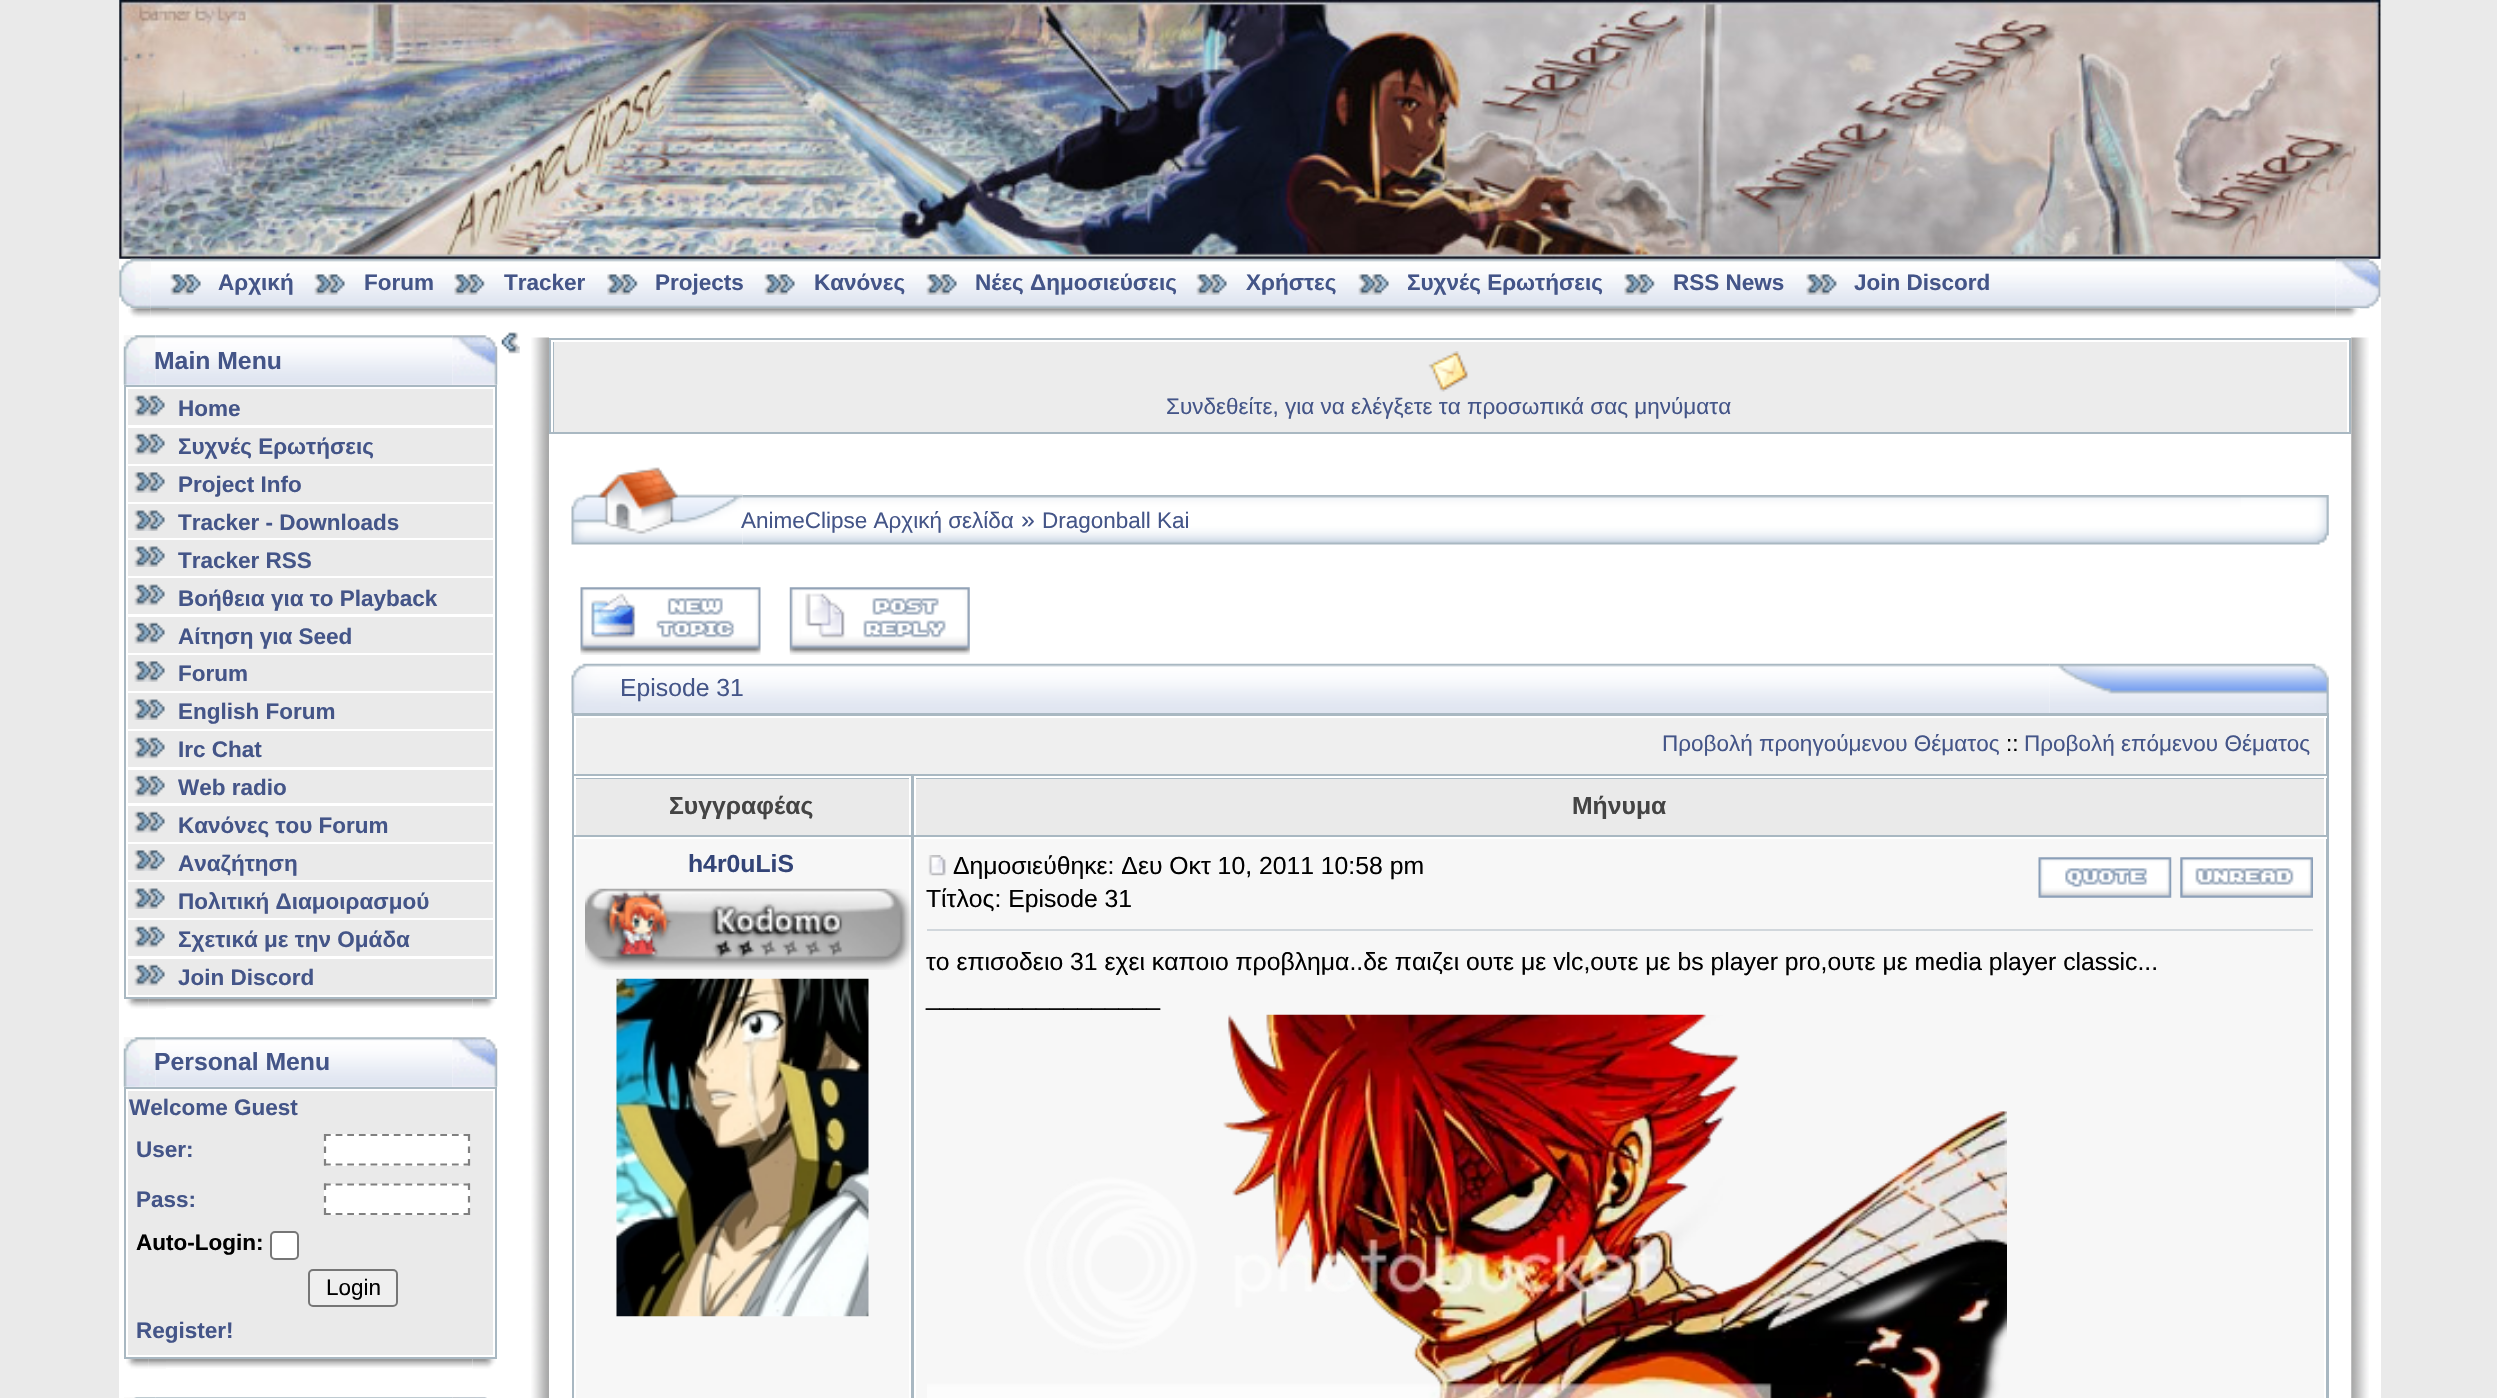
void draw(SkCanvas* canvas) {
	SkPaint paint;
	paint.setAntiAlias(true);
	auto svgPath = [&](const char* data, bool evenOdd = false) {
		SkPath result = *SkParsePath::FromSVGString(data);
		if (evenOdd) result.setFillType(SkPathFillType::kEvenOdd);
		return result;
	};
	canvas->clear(0xffeaeaea);
	paint.setColor(0xffffffff);
	canvas->drawRect(SkRect::MakeXYWH(119, 0, 2262, 1398), paint);
	canvas->drawImageRect(SkImages::DeferredFromEncodedData(SkData::MakeFromFileName("img3.png")), SkRect::MakeXYWH(150, 258, 2186, 51), SkSamplingOptions());
	canvas->drawImageRect(SkImages::DeferredFromEncodedData(SkData::MakeFromFileName("img1.png")), SkRect::MakeXYWH(119, 0, 2262, 259), SkSamplingOptions());
	canvas->drawImageRect(SkImages::DeferredFromEncodedData(SkData::MakeFromFileName("img11.png")), SkRect::MakeXYWH(150, 308, 2186, 10), SkSamplingOptions());
	canvas->drawImageRect(SkImages::DeferredFromEncodedData(SkData::MakeFromFileName("img2.png")), SkRect::MakeXYWH(119, 258, 32, 51), SkSamplingOptions());
	canvas->drawImageRect(SkImages::DeferredFromEncodedData(SkData::MakeFromFileName("img4.png")), SkRect::MakeXYWH(170, 274, 31, 21), SkSamplingOptions());
	SkFont f1(fontMgr->matchFamilyStyle("Liberation Sans", SkFontStyle::Bold()), 22.5);
	f1.setSubpixel(true);
	paint.setColor(0xff445588);
	canvas->drawString("Αρχική", 218, 290, f1, paint);
	canvas->drawImageRect(SkImages::DeferredFromEncodedData(SkData::MakeFromFileName("img5.png")), SkRect::MakeXYWH(314, 274, 31, 21), SkSamplingOptions());
	canvas->drawString("Forum", 364, 290, f1, paint);
	canvas->drawImageRect(SkImages::DeferredFromEncodedData(SkData::MakeFromFileName("img6.png")), SkRect::MakeXYWH(454, 274, 31, 21), SkSamplingOptions());
	canvas->drawString("Tracker", 504, 290, f1, paint);
	canvas->drawImageRect(SkImages::DeferredFromEncodedData(SkData::MakeFromFileName("img7.png")), SkRect::MakeXYWH(607, 274, 31, 21), SkSamplingOptions());
	canvas->drawString("Projects", 655, 290, f1, paint);
	canvas->drawImageRect(SkImages::DeferredFromEncodedData(SkData::MakeFromFileName("img5.png")), SkRect::MakeXYWH(764, 274, 31, 21), SkSamplingOptions());
	canvas->drawString("Κανόνες", 814, 290, f1, paint);
	canvas->drawImageRect(SkImages::DeferredFromEncodedData(SkData::MakeFromFileName("img4.png")), SkRect::MakeXYWH(926, 274, 31, 21), SkSamplingOptions());
	canvas->drawString("Νέες Δημοσιεύσεις", 975, 290, f1, paint);
	canvas->drawImageRect(SkImages::DeferredFromEncodedData(SkData::MakeFromFileName("img5.png")), SkRect::MakeXYWH(1196, 274, 31, 21), SkSamplingOptions());
	canvas->drawString("Χρήστες", 1246, 290, f1, paint);
	canvas->drawImageRect(SkImages::DeferredFromEncodedData(SkData::MakeFromFileName("img4.png")), SkRect::MakeXYWH(1358, 274, 31, 21), SkSamplingOptions());
	canvas->drawString("Συχνές Ερωτήσεις", 1407, 290, f1, paint);
	canvas->drawImageRect(SkImages::DeferredFromEncodedData(SkData::MakeFromFileName("img6.png")), SkRect::MakeXYWH(1624, 274, 31, 21), SkSamplingOptions());
	canvas->drawString("RSS News", 1673, 290, f1, paint);
	canvas->drawImageRect(SkImages::DeferredFromEncodedData(SkData::MakeFromFileName("img8.png")), SkRect::MakeXYWH(1806, 274, 31, 21), SkSamplingOptions());
	canvas->drawString("Join Discord", 1854, 290, f1, paint);
	canvas->drawImageRect(SkImages::DeferredFromEncodedData(SkData::MakeFromFileName("img9.png")), SkRect::MakeXYWH(2335, 258, 46, 51), SkSamplingOptions());
	canvas->drawImageRect(SkImages::DeferredFromEncodedData(SkData::MakeFromFileName("img10.png")), SkRect::MakeXYWH(128, 308, 23, 10), SkSamplingOptions());
	canvas->drawImageRect(SkImages::DeferredFromEncodedData(SkData::MakeFromFileName("img12.png")), SkRect::MakeXYWH(150, 308, 19, 2), SkSamplingOptions());
	canvas->drawImageRect(SkImages::DeferredFromEncodedData(SkData::MakeFromFileName("img13.png")), SkRect::MakeXYWH(2335, 308, 25, 10), SkSamplingOptions());
	canvas->drawImageRect(SkImages::DeferredFromEncodedData(SkData::MakeFromFileName("img14.png")), SkRect::MakeXYWH(501, 332, 19, 22), SkSamplingOptions());
	canvas->drawImageRect(SkImages::DeferredFromEncodedData(SkData::MakeFromFileName("img16.png")), SkRect::MakeXYWH(155, 335, 298, 50), SkSamplingOptions());
	canvas->drawImageRect(SkImages::DeferredFromEncodedData(SkData::MakeFromFileName("img15.png")), SkRect::MakeXYWH(123, 335, 33, 50), SkSamplingOptions());
	SkFont f2(fontMgr->matchFamilyStyle("Liberation Sans", SkFontStyle::Bold()), 24.75);
	f2.setSubpixel(true);
	canvas->drawString("Main Menu", 154, 369, f2, paint);
	canvas->drawImageRect(SkImages::DeferredFromEncodedData(SkData::MakeFromFileName("img17.png")), SkRect::MakeXYWH(452, 335, 46, 50), SkSamplingOptions());
	paint.setStroke(true);
	paint.setStrokeWidth(2);
	paint.setColor(0xffa9b8c2);
	canvas->drawRect(SkRect::MakeXYWH(125, 386, 371, 612), paint);
	paint.setStroke(false);
	paint.setColor(0xffeaeaea);
	canvas->drawRect(SkRect::MakeXYWH(128, 389, 365, 36), paint);
	canvas->drawImageRect(SkImages::DeferredFromEncodedData(SkData::MakeFromFileName("img18.png")), SkRect::MakeXYWH(134, 395, 31, 22), SkSamplingOptions());
	paint.setColor(0xff445588);
	canvas->drawString("Home", 178, 416, f1, paint);
	paint.setColor(0xffeaeaea);
	canvas->drawRect(SkRect::MakeXYWH(128, 428, 365, 36), paint);
	canvas->drawImageRect(SkImages::DeferredFromEncodedData(SkData::MakeFromFileName("img19.png")), SkRect::MakeXYWH(134, 433, 31, 22), SkSamplingOptions());
	paint.setColor(0xff445588);
	canvas->drawString("Συχνές Ερωτήσεις", 178, 454, f1, paint);
	paint.setColor(0xffeaeaea);
	canvas->drawRect(SkRect::MakeXYWH(128, 466, 365, 36), paint);
	canvas->drawImageRect(SkImages::DeferredFromEncodedData(SkData::MakeFromFileName("img20.png")), SkRect::MakeXYWH(134, 472, 31, 21), SkSamplingOptions());
	paint.setColor(0xff445588);
	canvas->drawString("Project Info", 178, 492, f1, paint);
	paint.setColor(0xffeaeaea);
	canvas->drawRect(SkRect::MakeXYWH(128, 504, 365, 34), paint);
	canvas->drawImageRect(SkImages::DeferredFromEncodedData(SkData::MakeFromFileName("img21.png")), SkRect::MakeXYWH(134, 510, 31, 21), SkSamplingOptions());
	paint.setColor(0xff445588);
	canvas->drawString("Tracker - Downloads", 178, 530, f1, paint);
	paint.setColor(0xffeaeaea);
	canvas->drawRect(SkRect::MakeXYWH(128, 540, 365, 36), paint);
	canvas->drawImageRect(SkImages::DeferredFromEncodedData(SkData::MakeFromFileName("img21.png")), SkRect::MakeXYWH(134, 546, 31, 21), SkSamplingOptions());
	paint.setColor(0xff445588);
	canvas->drawString("Tracker RSS", 178, 568, f1, paint);
	paint.setColor(0xffeaeaea);
	canvas->drawRect(SkRect::MakeXYWH(128, 578, 365, 36), paint);
	canvas->drawImageRect(SkImages::DeferredFromEncodedData(SkData::MakeFromFileName("img18.png")), SkRect::MakeXYWH(134, 584, 31, 22), SkSamplingOptions());
	paint.setColor(0xff445588);
	canvas->drawString("Βοήθεια για το Playback", 178, 606, f1, paint);
	paint.setColor(0xffeaeaea);
	canvas->drawRect(SkRect::MakeXYWH(128, 617, 365, 36), paint);
	canvas->drawImageRect(SkImages::DeferredFromEncodedData(SkData::MakeFromFileName("img19.png")), SkRect::MakeXYWH(134, 622, 31, 22), SkSamplingOptions());
	paint.setColor(0xff445588);
	canvas->drawString("Αίτηση για Seed", 178, 644, f1, paint);
	paint.setColor(0xffeaeaea);
	canvas->drawRect(SkRect::MakeXYWH(128, 655, 365, 36), paint);
	canvas->drawImageRect(SkImages::DeferredFromEncodedData(SkData::MakeFromFileName("img20.png")), SkRect::MakeXYWH(134, 661, 31, 21), SkSamplingOptions());
	paint.setColor(0xff445588);
	canvas->drawString("Forum", 178, 681, f1, paint);
	paint.setColor(0xffeaeaea);
	canvas->drawRect(SkRect::MakeXYWH(128, 693, 365, 36), paint);
	canvas->drawImageRect(SkImages::DeferredFromEncodedData(SkData::MakeFromFileName("img21.png")), SkRect::MakeXYWH(134, 699, 31, 21), SkSamplingOptions());
	paint.setColor(0xff445588);
	canvas->drawString("English Forum", 178, 719, f1, paint);
	paint.setColor(0xffeaeaea);
	canvas->drawRect(SkRect::MakeXYWH(128, 731, 365, 36), paint);
	canvas->drawImageRect(SkImages::DeferredFromEncodedData(SkData::MakeFromFileName("img18.png")), SkRect::MakeXYWH(134, 737, 31, 22), SkSamplingOptions());
	paint.setColor(0xff445588);
	canvas->drawString("Irc Chat", 178, 757, f1, paint);
	paint.setColor(0xffeaeaea);
	canvas->drawRect(SkRect::MakeXYWH(128, 770, 365, 33), paint);
	canvas->drawImageRect(SkImages::DeferredFromEncodedData(SkData::MakeFromFileName("img22.png")), SkRect::MakeXYWH(134, 775, 31, 22), SkSamplingOptions());
	paint.setColor(0xff445588);
	canvas->drawString("Web radio", 178, 795, f1, paint);
	paint.setColor(0xffeaeaea);
	canvas->drawRect(SkRect::MakeXYWH(128, 806, 365, 36), paint);
	canvas->drawImageRect(SkImages::DeferredFromEncodedData(SkData::MakeFromFileName("img19.png")), SkRect::MakeXYWH(134, 811, 31, 22), SkSamplingOptions());
	paint.setColor(0xff445588);
	canvas->drawString("Κανόνες του Forum", 178, 833, f1, paint);
	paint.setColor(0xffeaeaea);
	canvas->drawRect(SkRect::MakeXYWH(128, 844, 365, 36), paint);
	canvas->drawImageRect(SkImages::DeferredFromEncodedData(SkData::MakeFromFileName("img20.png")), SkRect::MakeXYWH(134, 850, 31, 21), SkSamplingOptions());
	paint.setColor(0xff445588);
	canvas->drawString("Αναζήτηση", 178, 871, f1, paint);
	paint.setColor(0xffeaeaea);
	canvas->drawRect(SkRect::MakeXYWH(128, 882, 365, 36), paint);
	canvas->drawImageRect(SkImages::DeferredFromEncodedData(SkData::MakeFromFileName("img21.png")), SkRect::MakeXYWH(134, 888, 31, 21), SkSamplingOptions());
	paint.setColor(0xff445588);
	canvas->drawString("Πολιτική Διαμοιρασμού", 178, 909, f1, paint);
	paint.setColor(0xffeaeaea);
	canvas->drawRect(SkRect::MakeXYWH(128, 920, 365, 36), paint);
	canvas->drawImageRect(SkImages::DeferredFromEncodedData(SkData::MakeFromFileName("img18.png")), SkRect::MakeXYWH(134, 926, 31, 22), SkSamplingOptions());
	paint.setColor(0xff445588);
	canvas->drawString("Σχετικά με την Ομάδα", 178, 947, f1, paint);
	paint.setColor(0xffeaeaea);
	canvas->drawRect(SkRect::MakeXYWH(128, 959, 365, 36), paint);
	canvas->drawImageRect(SkImages::DeferredFromEncodedData(SkData::MakeFromFileName("img19.png")), SkRect::MakeXYWH(134, 964, 31, 22), SkSamplingOptions());
	paint.setColor(0xff445588);
	canvas->drawString("Join Discord", 178, 985, f1, paint);
	canvas->drawImageRect(SkImages::DeferredFromEncodedData(SkData::MakeFromFileName("img24.png")), SkRect::MakeXYWH(148, 999, 325, 9), SkSamplingOptions());
	canvas->drawImageRect(SkImages::DeferredFromEncodedData(SkData::MakeFromFileName("img23.png")), SkRect::MakeXYWH(126, 999, 23, 10), SkSamplingOptions());
	canvas->drawImageRect(SkImages::DeferredFromEncodedData(SkData::MakeFromFileName("img25.png")), SkRect::MakeXYWH(148, 999, 18, 10), SkSamplingOptions());
	canvas->drawImageRect(SkImages::DeferredFromEncodedData(SkData::MakeFromFileName("img26.png")), SkRect::MakeXYWH(472, 999, 24, 10), SkSamplingOptions());
	canvas->drawImageRect(SkImages::DeferredFromEncodedData(SkData::MakeFromFileName("img27.png")), SkRect::MakeXYWH(155, 1037, 298, 50), SkSamplingOptions());
	canvas->drawImageRect(SkImages::DeferredFromEncodedData(SkData::MakeFromFileName("img15.png")), SkRect::MakeXYWH(123, 1037, 33, 50), SkSamplingOptions());
	canvas->drawString("Personal Menu", 154, 1070, f2, paint);
	canvas->drawImageRect(SkImages::DeferredFromEncodedData(SkData::MakeFromFileName("img17.png")), SkRect::MakeXYWH(452, 1037, 46, 50), SkSamplingOptions());
	paint.setStroke(true);
	paint.setColor(0xffa9b8c2);
	canvas->drawRect(SkRect::MakeXYWH(125, 1088, 371, 270), paint);
	paint.setStroke(false);
	paint.setColor(0xffeaeaea);
	canvas->drawRect(SkRect::MakeXYWH(128, 1091, 365, 264), paint);
	paint.setColor(0xff445588);
	canvas->drawString("Welcome Guest", 129, 1115, f1, paint);
	canvas->drawString("User:", 136, 1157, f1, paint);
	paint.setColor(0xffffffff);
	canvas->drawRect(SkRect::MakeXYWH(324, 1134, 146, 32), paint);
	paint.setStroke(true);
	paint.setStrokeWidth(2.2);
	paint.setColor(0xff808080);
	paint.setPathEffect(SkDashPathEffect::Make({{6.75f, 4.88f}}, 0));
	canvas->drawPath(svgPath("M324 1135H470"), paint);
	paint.setPathEffect(nullptr);
	canvas->drawPath(svgPath("M469 1134V1141M469 1146.5V1153M469 1159V1165.5"), paint);
	paint.setPathEffect(SkDashPathEffect::Make({{6.75f, 4.88f}}, 0));
	canvas->drawPath(svgPath("M324 1164.5H470"), paint);
	paint.setPathEffect(nullptr);
	canvas->drawPath(svgPath("M325 1134V1141M325 1146.5V1153M325 1159V1165.5"), paint);
	paint.setStroke(false);
	paint.setColor(0xff445588);
	canvas->drawString("Pass:", 136, 1207, f1, paint);
	paint.setColor(0xffffffff);
	canvas->drawRect(SkRect::MakeXYWH(324, 1184, 146, 31), paint);
	paint.setStroke(true);
	paint.setColor(0xff808080);
	paint.setPathEffect(SkDashPathEffect::Make({{6.75f, 4.88f}}, 0));
	canvas->drawPath(svgPath("M324 1184.5H470"), paint);
	paint.setPathEffect(nullptr);
	canvas->drawPath(svgPath("M469 1183.5V1190M469 1196V1202.5M469 1208V1215"), paint);
	paint.setPathEffect(SkDashPathEffect::Make({{6.75f, 4.88f}}, 0));
	canvas->drawPath(svgPath("M324 1214H470"), paint);
	paint.setPathEffect(nullptr);
	canvas->drawPath(svgPath("M325 1183.5V1190M325 1196V1202.5M325 1208V1215"), paint);
	paint.setStroke(false);
	paint.setColor(0xff000000);
	canvas->drawString("Auto-Login:", 136, 1250, f1, paint);
	paint.setColor(0xffffffff);
	canvas->drawRoundRect(SkRect::MakeXYWH(271, 1232, 27, 27), 4, 4, paint);
	paint.setStroke(true);
	paint.setStrokeWidth(2);
	paint.setColor(0xff767676);
	canvas->drawRoundRect(SkRect::MakeXYWH(271, 1232, 27, 27), 4, 4, paint);
	paint.setStroke(false);
	paint.setColor(0xffefefef);
	canvas->drawRoundRect(SkRect::MakeXYWH(309, 1270, 88, 36), 4, 4, paint);
	paint.setStroke(true);
	paint.setColor(0xff767676);
	canvas->drawRoundRect(SkRect::MakeXYWH(309, 1270, 88, 36), 4, 4, paint);
	SkFont f3(fontMgr->matchFamilyStyle("Liberation Sans", SkFontStyle::Normal()), 22.5);
	f3.setSubpixel(true);
	paint.setStroke(false);
	paint.setColor(0xff000000);
	canvas->drawString("Login", 326, 1295, f3, paint);
	paint.setColor(0xff445588);
	canvas->drawString("Register!", 136, 1338, f1, paint);
	canvas->drawImageRect(SkImages::DeferredFromEncodedData(SkData::MakeFromFileName("img24.png")), SkRect::MakeXYWH(148, 1359, 325, 9), SkSamplingOptions());
	canvas->drawImageRect(SkImages::DeferredFromEncodedData(SkData::MakeFromFileName("img23.png")), SkRect::MakeXYWH(126, 1359, 23, 10), SkSamplingOptions());
	canvas->drawImageRect(SkImages::DeferredFromEncodedData(SkData::MakeFromFileName("img25.png")), SkRect::MakeXYWH(148, 1359, 18, 10), SkSamplingOptions());
	canvas->drawImageRect(SkImages::DeferredFromEncodedData(SkData::MakeFromFileName("img26.png")), SkRect::MakeXYWH(472, 1359, 24, 10), SkSamplingOptions());
	canvas->drawImageRect(SkImages::DeferredFromEncodedData(SkData::MakeFromFileName("img29.png")), SkRect::MakeXYWH(155, 1397, 298, 1), SkSamplingOptions());
	canvas->drawImageRect(SkImages::DeferredFromEncodedData(SkData::MakeFromFileName("img28.png")), SkRect::MakeXYWH(124, 1397, 32, 1), SkSamplingOptions());
	canvas->drawImageRect(SkImages::DeferredFromEncodedData(SkData::MakeFromFileName("img30.png")), SkRect::MakeXYWH(452, 1397, 35, 1), SkSamplingOptions());
	canvas->drawImageRect(SkImages::DeferredFromEncodedData(SkData::MakeFromFileName("img31.png")), SkRect::MakeXYWH(531, 337, 18, 1061), SkSamplingOptions());
	paint.setColor(0xffa9b8c2);
	canvas->drawRect(SkRect::MakeXYWH(549, 338, 1802, 96), paint);
	paint.setColor(0xffececec);
	canvas->drawRect(SkRect::MakeXYWH(554, 342, 1793, 90), paint);
	paint.setColor(0xffffffff);
	canvas->drawRect(SkRect::MakeXYWH(551, 340, 1798, 2), paint);
	canvas->drawRect(SkRect::MakeXYWH(2347, 340, 2, 92), paint);
	canvas->drawRect(SkRect::MakeXYWH(551, 340, 2, 92), paint);
	canvas->drawImageRect(SkImages::DeferredFromEncodedData(SkData::MakeFromFileName("img32.png")), SkRect::MakeXYWH(1428, 351, 40, 41), SkSamplingOptions());
	paint.setColor(0xff445588);
	canvas->drawString("Συνδεθείτε, για να ελέγξετε τα προσωπικά σας μηνύματα", 1166, 414, f3, paint);
	canvas->drawImageRect(SkImages::DeferredFromEncodedData(SkData::MakeFromFileName("img33.png")), SkRect::MakeXYWH(571, 467, 172, 78), SkSamplingOptions());
	canvas->drawImageRect(SkImages::DeferredFromEncodedData(SkData::MakeFromFileName("img34.png")), SkRect::MakeXYWH(742, 495, 1499, 50), SkSamplingOptions());
	canvas->drawString("AnimeClipse Αρχική σελίδα", 741, 528, f3, paint);
	SkFont f4(fontMgr->matchFamilyStyle("Liberation Sans", SkFontStyle::Normal()), 24.75);
	f4.setSubpixel(true);
	canvas->drawString("»", 1021, 528, f4, paint);
	canvas->drawString("Dragonball Kai", 1042, 528, f3, paint);
	canvas->drawImageRect(SkImages::DeferredFromEncodedData(SkData::MakeFromFileName("img35.png")), SkRect::MakeXYWH(2241, 495, 88, 50), SkSamplingOptions());
	canvas->drawImageRect(SkImages::DeferredFromEncodedData(SkData::MakeFromFileName("img36.png")), SkRect::MakeXYWH(580, 587, 181, 68), SkSamplingOptions());
	canvas->drawImageRect(SkImages::DeferredFromEncodedData(SkData::MakeFromFileName("img37.png")), SkRect::MakeXYWH(789, 587, 181, 68), SkSamplingOptions());
	canvas->drawImageRect(SkImages::DeferredFromEncodedData(SkData::MakeFromFileName("img38.png")), SkRect::MakeXYWH(571, 663, 50, 51), SkSamplingOptions());
	canvas->drawImageRect(SkImages::DeferredFromEncodedData(SkData::MakeFromFileName("img39.png")), SkRect::MakeXYWH(621, 663, 1429, 50), SkSamplingOptions());
	canvas->drawString("Εpisode 31", 620, 696, f4, paint);
	canvas->drawImageRect(SkImages::DeferredFromEncodedData(SkData::MakeFromFileName("img40.png")), SkRect::MakeXYWH(2049, 663, 280, 50), SkSamplingOptions());
	paint.setColor(0xffa9b8c2);
	canvas->drawRect(SkRect::MakeXYWH(572, 713, 1757, 685), paint);
	paint.setColor(0xffefefef);
	canvas->drawRect(SkRect::MakeXYWH(576, 718, 1748, 56), paint);
	paint.setColor(0xffffffff);
	canvas->drawRect(SkRect::MakeXYWH(574, 716, 1753, 2), paint);
	canvas->drawRect(SkRect::MakeXYWH(2324, 716, 2, 58), paint);
	canvas->drawRect(SkRect::MakeXYWH(574, 716, 2, 58), paint);
	paint.setColor(0xff445588);
	canvas->drawString("Προβολή προηγούμενου Θέματος", 1662, 751, f3, paint);
	paint.setColor(0xff000000);
	canvas->drawString("::", 2006, 751, f3, paint);
	paint.setColor(0xff445588);
	canvas->drawString("Προβολή επόμενου Θέματος", 2024, 751, f3, paint);
	paint.setColor(0xffeaeaea);
	canvas->drawRect(SkRect::MakeXYWH(576, 779, 333, 56), paint);
	paint.setColor(0xffffffff);
	canvas->drawRect(SkRect::MakeXYWH(574, 776, 337, 2), paint);
	canvas->drawRect(SkRect::MakeXYWH(909, 776, 2, 59), paint);
	canvas->drawRect(SkRect::MakeXYWH(574, 776, 2, 59), paint);
	paint.setColor(0xff444444);
	canvas->drawString("Συγγραφέας", 669, 814, f2, paint);
	paint.setColor(0xffeaeaea);
	canvas->drawRect(SkRect::MakeXYWH(916, 779, 1408, 56), paint);
	paint.setColor(0xffffffff);
	canvas->drawRect(SkRect::MakeXYWH(914, 776, 1413, 2), paint);
	canvas->drawRect(SkRect::MakeXYWH(2324, 776, 2, 59), paint);
	canvas->drawRect(SkRect::MakeXYWH(914, 776, 2, 59), paint);
	paint.setColor(0xff444444);
	canvas->drawString("Μήνυμα", 1572, 814, f2, paint);
	paint.setColor(0xfff7f7f7);
	canvas->drawRect(SkRect::MakeXYWH(576, 839, 333, 559), paint);
	paint.setColor(0xffffffff);
	canvas->drawRect(SkRect::MakeXYWH(574, 837, 337, 2), paint);
	canvas->drawRect(SkRect::MakeXYWH(909, 837, 2, 561), paint);
	canvas->drawRect(SkRect::MakeXYWH(574, 837, 2, 561), paint);
	paint.setColor(0xff334477);
	canvas->drawString("h4r0uLiS", 688, 872, f2, paint);
	canvas->drawImageRect(SkImages::DeferredFromEncodedData(SkData::MakeFromFileName("img41.png")), SkRect::MakeXYWH(585, 888, 326, 82), SkSamplingOptions());
	canvas->drawImageRect(SkImages::DeferredFromEncodedData(SkData::MakeFromFileName("img42.png")), SkRect::MakeXYWH(616, 978, 253, 339), SkSamplingOptions());
	paint.setColor(0xfff7f7f7);
	canvas->drawRect(SkRect::MakeXYWH(916, 839, 1408, 559), paint);
	paint.setColor(0xffffffff);
	canvas->drawRect(SkRect::MakeXYWH(914, 837, 1413, 2), paint);
	canvas->drawRect(SkRect::MakeXYWH(2324, 837, 2, 561), paint);
	canvas->drawRect(SkRect::MakeXYWH(914, 837, 2, 561), paint);
	canvas->drawImageRect(SkImages::DeferredFromEncodedData(SkData::MakeFromFileName("img43.png")), SkRect::MakeXYWH(928, 855, 18, 21), SkSamplingOptions());
	paint.setColor(0xff000000);
	canvas->drawString("Δημοσιεύθηκε: Δευ Οκτ 10, 2011 10:58 pm", 953, 874, f4, paint);
	canvas->drawString("Τίτλος: Εpisode 31", 926, 907, f4, paint);
	canvas->drawImageRect(SkImages::DeferredFromEncodedData(SkData::MakeFromFileName("img44.png")), SkRect::MakeXYWH(2038, 857, 134, 41), SkSamplingOptions());
	canvas->drawImageRect(SkImages::DeferredFromEncodedData(SkData::MakeFromFileName("img45.png")), SkRect::MakeXYWH(2180, 857, 133, 41), SkSamplingOptions());
	paint.setColor(0xffd1d7dc);
	canvas->drawRect(SkRect::MakeXYWH(927, 929, 1386, 2), paint);
	paint.setColor(0xff000000);
	canvas->drawString("το επισοδειο 31 εχει καποιο προβλημα..δε παιζει ουτε με vlc,ουτε με bs player pro,ουτε με media player classic...", 926, 970, f4, paint);
	canvas->drawString("_________________", 926, 1005, f4, paint);
	canvas->drawImageRect(SkImages::DeferredFromEncodedData(SkData::MakeFromFileName("img46.png")), SkRect::MakeXYWH(927, 1014, 1080, 384), SkSamplingOptions());
	canvas->drawImageRect(SkImages::DeferredFromEncodedData(SkData::MakeFromFileName("img47.png")), SkRect::MakeXYWH(2351, 337, 18, 1061), SkSamplingOptions());
}
